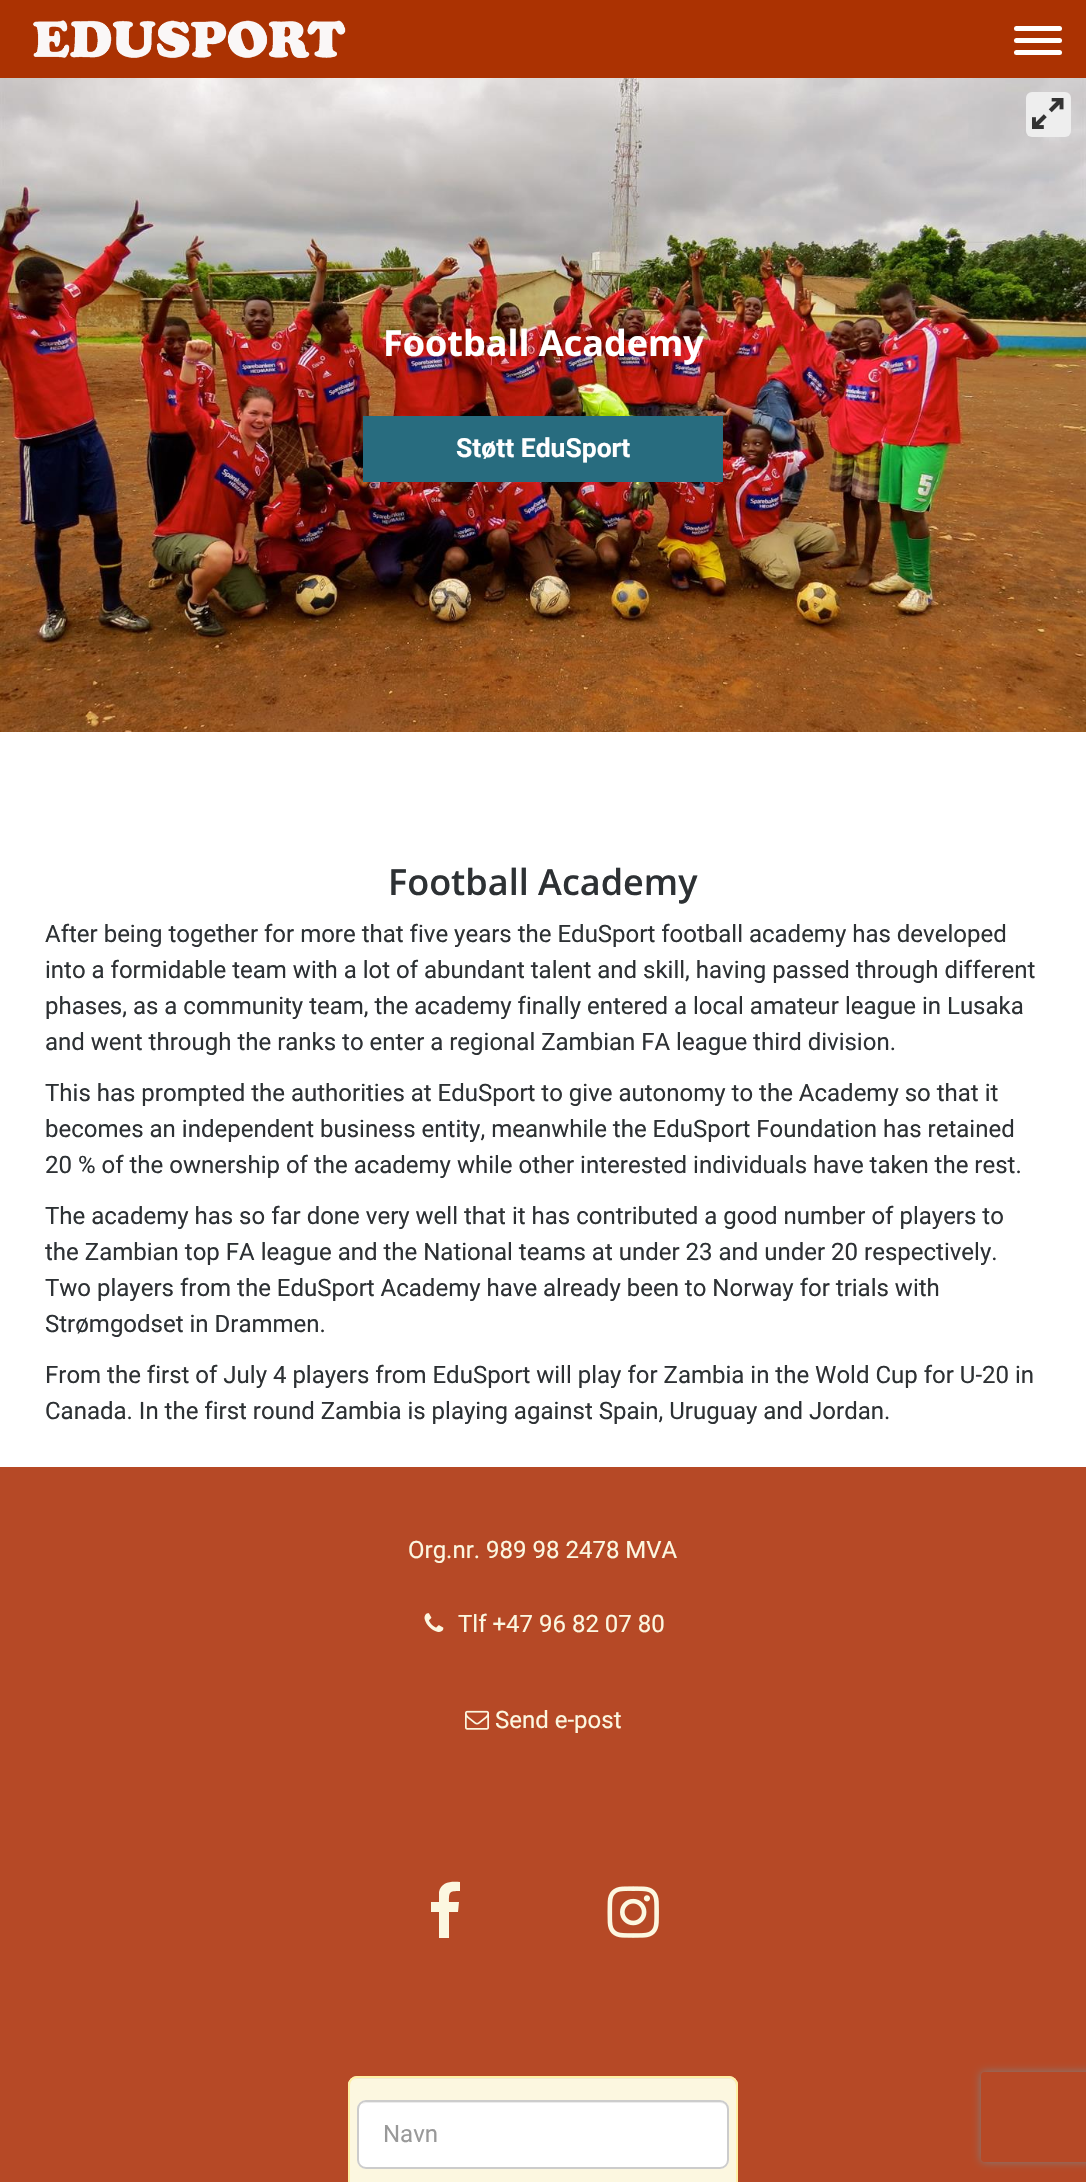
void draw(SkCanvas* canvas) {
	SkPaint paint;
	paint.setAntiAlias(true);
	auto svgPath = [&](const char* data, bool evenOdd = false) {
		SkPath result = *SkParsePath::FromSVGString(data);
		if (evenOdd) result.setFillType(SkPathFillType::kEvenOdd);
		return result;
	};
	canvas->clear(0xffffffff);
	paint.setColor(0xffab3202);
	canvas->drawRect(SkRect::MakeXYWH(0, 0, 1086, 78), paint);
	canvas->drawImageRect(SkImages::DeferredFromEncodedData(SkData::MakeFromFileName("img1.png")), SkRect::MakeXYWH(33, 20, 313, 38), SkSamplingOptions());
	paint.setColor(0xffffffff);
	canvas->drawRoundRect(SkRect::MakeXYWH(1014, 26, 48, 5), 2.5, 2.5, paint);
	canvas->drawRoundRect(SkRect::MakeXYWH(1014, 38, 48, 5), 2.5, 2.5, paint);
	canvas->drawRoundRect(SkRect::MakeXYWH(1014, 50, 48, 5), 2.5, 2.5, paint);
	canvas->drawImageRect(SkImages::DeferredFromEncodedData(SkData::MakeFromFileName("img3.png")), SkRect::MakeXYWH(0, 78, 1086, 654), SkSamplingOptions());
	paint.setColor(0xffeeeeee);
	canvas->drawRoundRect(SkRect::MakeXYWH(1026, 92, 45, 45), 6, 6, paint);
	canvas->drawImageRect(SkImages::DeferredFromEncodedData(SkData::MakeFromFileName("img2.png")), SkRect::MakeXYWH(1032, 98, 32, 31), SkSamplingOptions());
	SkFont f1(fontMgr->matchFamilyStyle("Open Sans", SkFontStyle::Bold()), 36);
	f1.setSubpixel(true);
	paint.setColor(0xffffffff);
	canvas->drawString("Football Academy", 383, 356, f1, paint);
	paint.setColor(0xff286c7f);
	canvas->drawRect(SkRect::MakeXYWH(363, 416, 360, 66), paint);
	SkFont f2(fontMgr->matchFamilyStyle("Roboto", SkFontStyle::Bold()), 26.5);
	f2.setSubpixel(true);
	paint.setColor(0xffffffff);
	canvas->drawString("Støtt EduSport", 456, 457, f2, paint);
	SkFont f3(fontMgr->matchFamilyStyle("Open Sans", SkFontStyle(600, SkFontStyle::kNormal_Width, SkFontStyle::kUpright_Slant)), 36);
	f3.setSubpixel(true);
	paint.setColor(0xff2d3134);
	canvas->drawString("Football Academy", 388, 895, f3, paint);
	SkFont f4(fontMgr->matchFamilyStyle("Roboto", SkFontStyle::Normal()), 24);
	f4.setSubpixel(true);
	canvas->drawString("After being together for more that five years the EduSport football academy has developed", 45, 942, f4, paint);
	canvas->drawString("into a formidable team with a lot of abundant talent and skill, having passed through different", 45, 978, f4, paint);
	canvas->drawString("phases, as a community team, the academy finally entered a local amateur league in Lusaka", 45, 1014, f4, paint);
	canvas->drawString("and went through the ranks to enter a regional Zambian FA league third division.", 45, 1050, f4, paint);
	canvas->drawString("This has prompted the authorities at EduSport to give autonomy to the Academy so that it", 45, 1101, f4, paint);
	canvas->drawString("becomes an independent business entity, meanwhile the EduSport Foundation has retained", 45, 1137, f4, paint);
	canvas->drawString("20 % of the ownership of the academy while other interested individuals have taken the rest.", 45, 1173, f4, paint);
	canvas->drawString("The academy has so far done very well that it has contributed a good number of players to", 45, 1224, f4, paint);
	canvas->drawString("the Zambian top FA league and the National teams at under 23 and under 20 respectively.", 45, 1260, f4, paint);
	canvas->drawString("Two players from the EduSport Academy have already been to Norway for trials with", 45, 1296, f4, paint);
	canvas->drawString("Strømgodset in Drammen.", 45, 1332, f4, paint);
	canvas->drawString("From the first of July 4 players from EduSport will play for Zambia in the Wold Cup for U-20 in", 45, 1383, f4, paint);
	canvas->drawString("Canada. In the first round Zambia is playing against Spain, Uruguay and Jordan.", 45, 1419, f4, paint);
	paint.setColor(0xffb64926);
	canvas->drawRect(SkRect::MakeXYWH(0, 1467, 1086, 715), paint);
	paint.setColor(0xfffcf7e0);
	canvas->drawString("Org.nr. 989 98 2478 MVA", 408, 1558, f4, paint);
	canvas->drawImageRect(SkImages::DeferredFromEncodedData(SkData::MakeFromFileName("img4.png")), SkRect::MakeXYWH(424, 1613, 20, 19), SkSamplingOptions());
	canvas->drawString("Tlf +47 96 82 07 80", 458, 1632, f4, paint);
	canvas->drawImageRect(SkImages::DeferredFromEncodedData(SkData::MakeFromFileName("img5.png")), SkRect::MakeXYWH(465, 1710, 24, 20), SkSamplingOptions());
	canvas->drawString("Send e-post", 495, 1728, f4, paint);
	canvas->drawPath(svgPath("M460 1882V1891C449 1891 449 1892 449 1902H459L458 1912H449V1938H439V1912H431V1902H439V1892C441 1882 451 1881 460 1882Z"), paint);
	canvas->drawImageRect(SkImages::DeferredFromEncodedData(SkData::MakeFromFileName("img6.png")), SkRect::MakeXYWH(607, 1886, 52, 52), SkSamplingOptions());
	canvas->drawRoundRect(SkRect::MakeXYWH(348, 2076, 390, 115), 9, 9, paint);
	paint.setColor(0xffefebd5);
	canvas->drawPath(svgPath("M357 2079H729C733 2079 736 2082 736 2086V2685V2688C736 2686 737 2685 737 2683V2086C737 2082 733 2078 729 2078H358C354 2078 350 2082 350 2086C350 2082 353 2079 357 2079Z"), paint);
	paint.setStroke(true);
	paint.setStrokeWidth(2);
	paint.setColor(0xfffff0a5);
	canvas->drawRoundRect(SkRect::MakeXYWH(349, 2077, 388, 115), 8, 8, paint);
	paint.setStroke(false);
	paint.setColor(0xffffffff);
	canvas->drawRoundRect(SkRect::MakeXYWH(357, 2100, 372, 69), 9, 9, paint);
	paint.setColor(0xffececec);
	canvas->drawPath(svgPath("M366 2103H720C724 2103 728 2106 728 2110C728 2106 724 2102 720 2102H367C365 2102 363 2103 361 2104C363 2104 364 2103 366 2103Z"), paint);
	paint.setStroke(true);
	paint.setColor(0xffcccccc);
	canvas->drawRoundRect(SkRect::MakeXYWH(358, 2101, 370, 67), 8, 8, paint);
	paint.setStroke(false);
	paint.setColor(0xff999999);
	canvas->drawString("Navn", 383, 2142, f4, paint);
	canvas->save();
	canvas->clipPath(svgPath("M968 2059H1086V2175H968ZM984 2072H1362C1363.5 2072 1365 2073.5 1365 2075V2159C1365 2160.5 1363.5 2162 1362 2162H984C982.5 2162 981 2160.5 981 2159V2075C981 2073.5 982.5 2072 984 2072Z", true), true);
	paint.setColor(0xff808080);
	paint.setMaskFilter(SkMaskFilter::MakeBlur(kNormal_SkBlurStyle, 4));
	canvas->drawRoundRect(SkRect::MakeXYWH(981, 2072, 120, 90), 3, 3, paint);
	paint.setMaskFilter(nullptr);
	canvas->restore();
}
